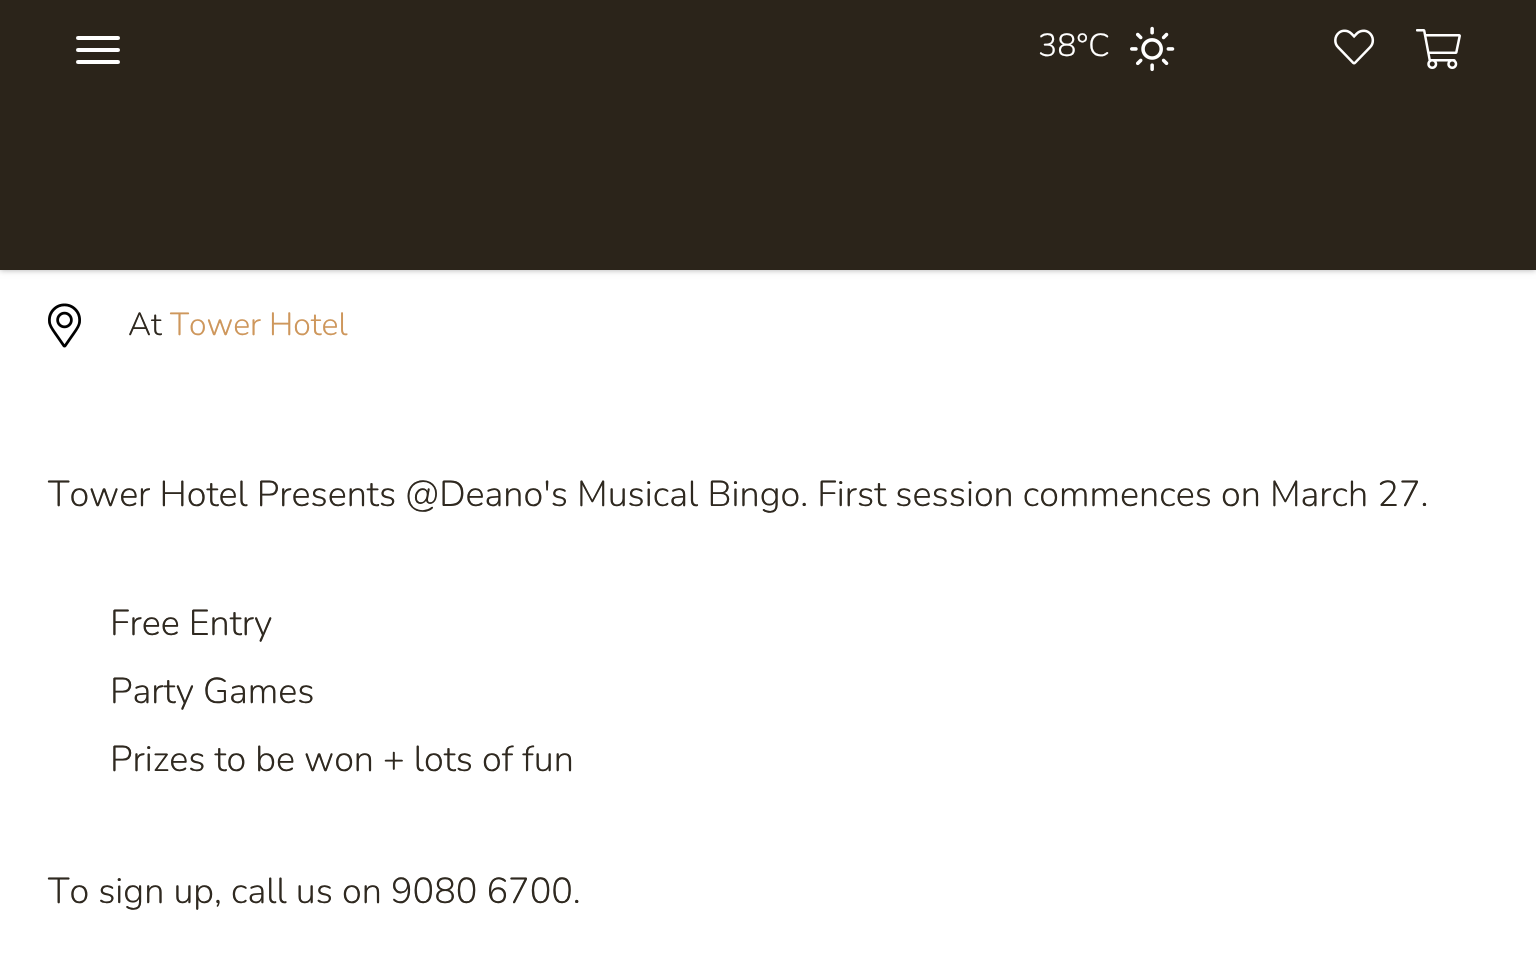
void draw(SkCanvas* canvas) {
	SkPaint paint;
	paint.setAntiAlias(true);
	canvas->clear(0xffffffff);
	paint.setColor(0xffadadad);
	paint.setMaskFilter(SkMaskFilter::MakeBlur(kNormal_SkBlurStyle, 3));
	canvas->drawRect(SkRect::MakeXYWH(0, 0, 1536, 270), paint);
	paint.setMaskFilter(nullptr);
	paint.setColor(0xff2b241a);
	canvas->drawRect(SkRect::MakeXYWH(0, 0, 1536, 270), paint);
	paint.setColor(0xffffffff);
	canvas->drawRoundRect(SkRect::MakeXYWH(76, 36, 44, 4), 2, 2, paint);
	canvas->drawRoundRect(SkRect::MakeXYWH(76, 48, 44, 4), 2, 2, paint);
	canvas->drawRoundRect(SkRect::MakeXYWH(76, 60, 44, 4), 2, 2, paint);
	SkFont f1(fontMgr->matchFamilyStyle("Nunito", SkFontStyle(300, SkFontStyle::kNormal_Width, SkFontStyle::kUpright_Slant)), 32);
	f1.setSubpixel(true);
	canvas->drawString("38°C", 1038, 56, f1, paint);
	canvas->drawImageRect(SkImages::DeferredFromEncodedData(SkData::MakeFromFileName("img1.png")), SkRect::MakeXYWH(1130, 26, 45, 46), SkSamplingOptions());
	canvas->drawImageRect(SkImages::DeferredFromEncodedData(SkData::MakeFromFileName("img2.png")), SkRect::MakeXYWH(1334, 29, 41, 36), SkSamplingOptions());
	canvas->drawImageRect(SkImages::DeferredFromEncodedData(SkData::MakeFromFileName("img3.png")), SkRect::MakeXYWH(1416, 29, 45, 40), SkSamplingOptions());
	canvas->drawImageRect(SkImages::DeferredFromEncodedData(SkData::MakeFromFileName("img4.png")), SkRect::MakeXYWH(48, 303, 33, 45), SkSamplingOptions());
	paint.setColor(0xff2f2920);
	canvas->drawString("At", 128, 335, f1, paint);
	paint.setColor(0xffce975c);
	canvas->drawString("Tower Hotel", 170, 335, f1, paint);
	SkFont f2(fontMgr->matchFamilyStyle("Nunito", SkFontStyle(300, SkFontStyle::kNormal_Width, SkFontStyle::kUpright_Slant)), 36);
	f2.setSubpixel(true);
	paint.setColor(0xff2f2920);
	canvas->drawString("Tower Hotel Presents @Deano's Musical Bingo. First session commences on March 27.", 48, 506, f2, paint);
	canvas->drawString("Free Entry", 110, 635, f2, paint);
	canvas->drawString("Party Games", 110, 703, f2, paint);
	canvas->drawString("Prizes to be won + lots of fun", 110, 771, f2, paint);
	canvas->drawString("To sign up, call us on 9080 6700.", 48, 903, f2, paint);
}
